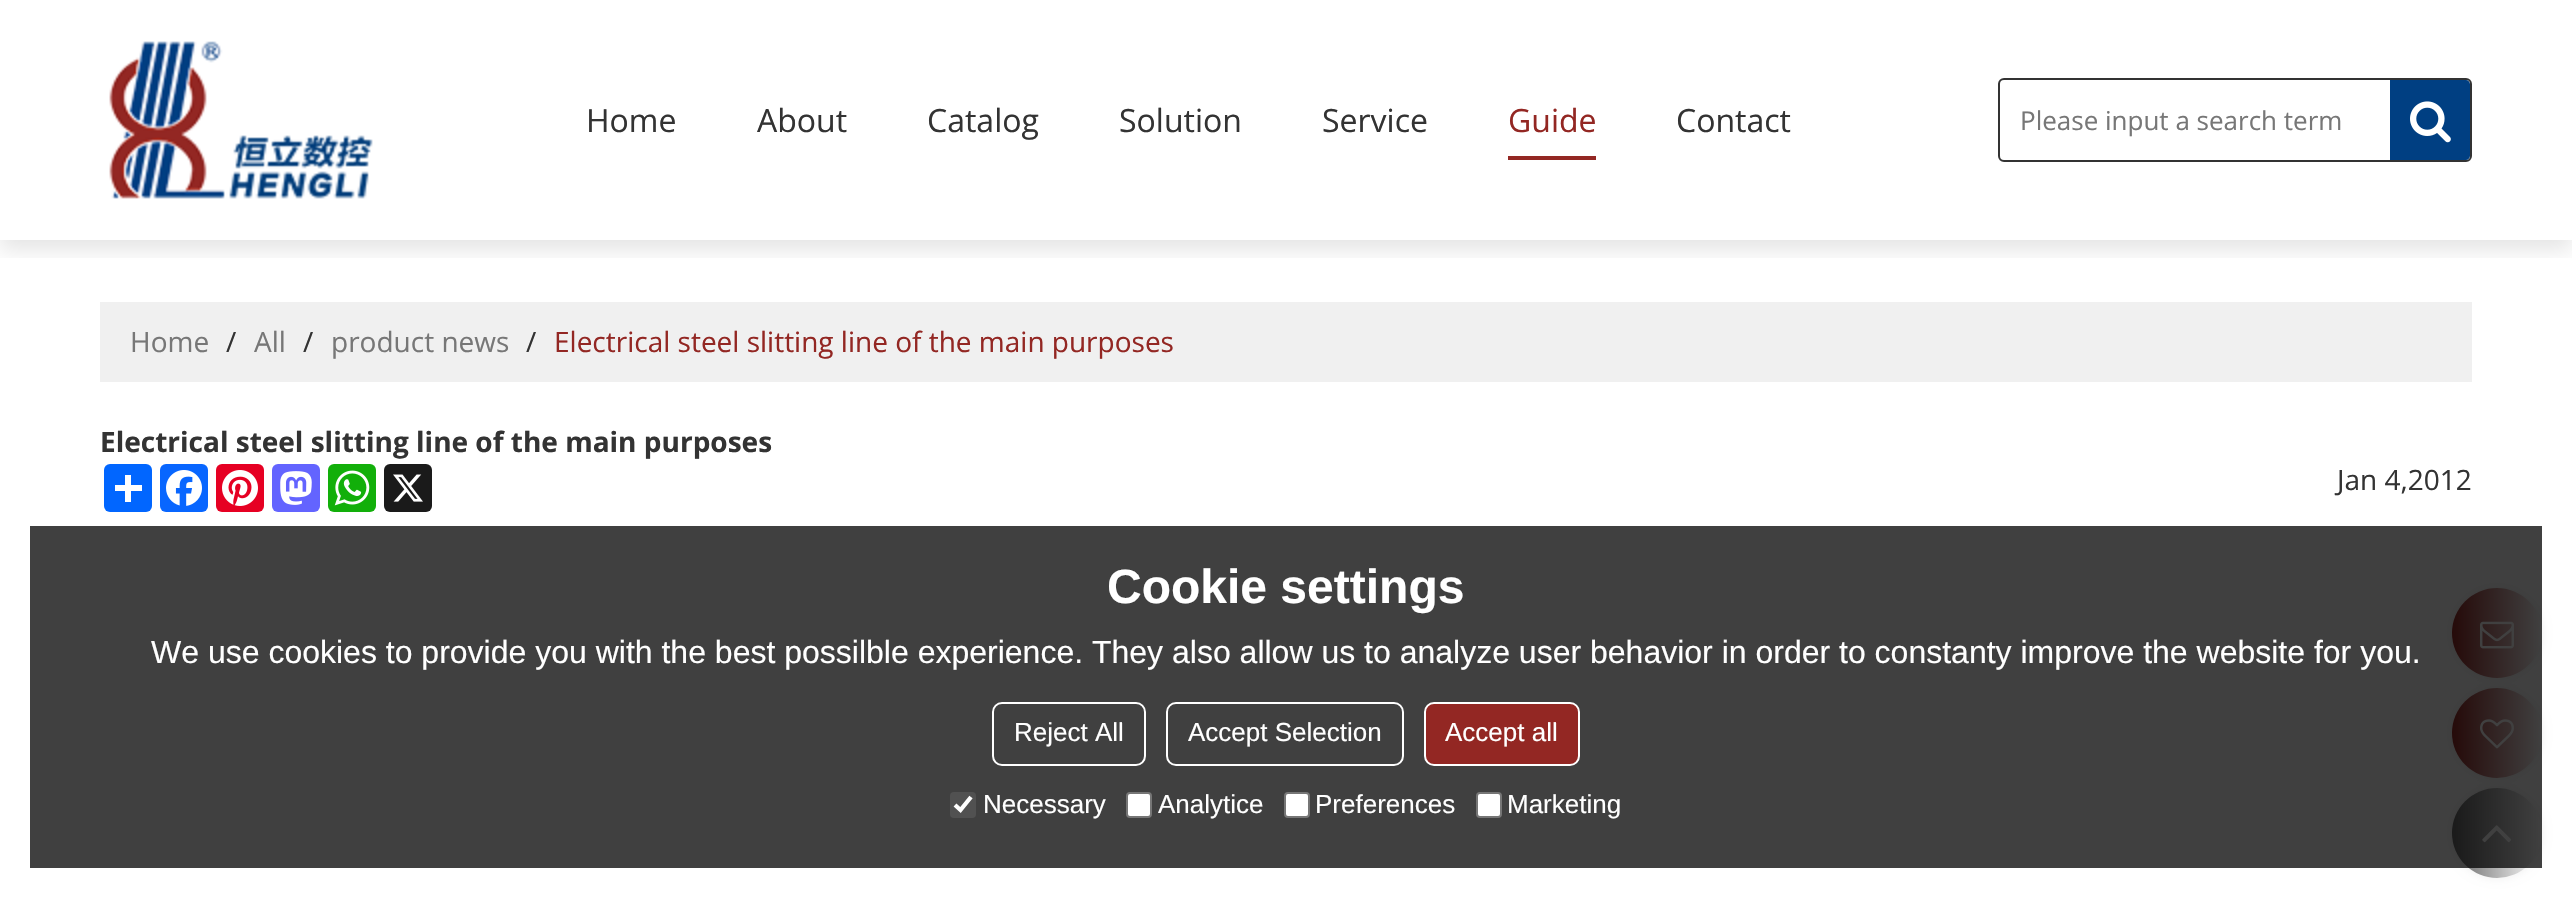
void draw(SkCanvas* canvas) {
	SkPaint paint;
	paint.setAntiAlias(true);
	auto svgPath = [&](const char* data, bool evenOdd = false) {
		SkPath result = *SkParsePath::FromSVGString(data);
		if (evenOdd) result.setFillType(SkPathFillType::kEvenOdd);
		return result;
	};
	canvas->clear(0xffffffff);
	canvas->save();
	canvas->clipRect(SkRect::MakeXYWH(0, 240, 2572, 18));
	paint.setColor(0x1a000000);
	paint.setMaskFilter(SkMaskFilter::MakeBlur(kNormal_SkBlurStyle, 10));
	canvas->drawRect(SkRect::MakeXYWH(0, 10, 2572, 240), paint);
	paint.setMaskFilter(nullptr);
	canvas->restore();
	canvas->drawImageRect(SkImages::DeferredFromEncodedData(SkData::MakeFromFileName("img1.png")), SkRect::MakeXYWH(109, 41, 264, 158), SkSamplingOptions());
	SkFont f1(fontMgr->matchFamilyStyle("Open Sans", SkFontStyle::Normal()), 32);
	f1.setSubpixel(true);
	paint.setColor(0xff333333);
	canvas->drawString("Home", 586, 132, f1, paint);
	canvas->drawString("About", 757, 132, f1, paint);
	canvas->drawString("Catalog", 927, 132, f1, paint);
	canvas->drawString("Solution", 1119, 132, f1, paint);
	canvas->drawString("Service", 1322, 132, f1, paint);
	paint.setColor(0xff932723);
	canvas->drawRect(SkRect::MakeXYWH(1508, 156, 88, 4), paint);
	canvas->drawString("Guide", 1508, 132, f1, paint);
	paint.setColor(0xff333333);
	canvas->drawString("Contact", 1676, 132, f1, paint);
	paint.setStroke(true);
	paint.setStrokeWidth(2);
	canvas->drawRoundRect(SkRect::MakeXYWH(1999, 79, 472, 82), 5, 5, paint);
	SkFont f2(fontMgr->matchFamilyStyle("Open Sans", SkFontStyle::Normal()), 26);
	f2.setSubpixel(true);
	paint.setStroke(false);
	paint.setColor(0xff777777);
	canvas->drawString("Please input a search term", 2020, 130, f2, paint);
	paint.setColor(0xff003f82);
	canvas->drawPath(svgPath("M2390 80H2466C2468 80 2470 82 2470 84V156C2470 158 2468 160 2466 160H2390Z"), paint);
	canvas->drawImageRect(SkImages::DeferredFromEncodedData(SkData::MakeFromFileName("img2.png")), SkRect::MakeXYWH(2410, 101, 41, 42), SkSamplingOptions());
	paint.setColor(0xfff0f0f0);
	canvas->drawRect(SkRect::MakeXYWH(100, 302, 2372, 80), paint);
	SkFont f3(fontMgr->matchFamilyStyle("Open Sans", SkFontStyle::Normal()), 28);
	f3.setSubpixel(true);
	paint.setColor(0xff777777);
	canvas->drawString("Home", 130, 352, f3, paint);
	paint.setColor(0xff333333);
	canvas->drawString("/", 226, 352, f3, paint);
	paint.setColor(0xff777777);
	canvas->drawString("All", 254, 352, f3, paint);
	paint.setColor(0xff333333);
	canvas->drawString("/", 303, 352, f3, paint);
	paint.setColor(0xff777777);
	canvas->drawString("product news", 331, 352, f3, paint);
	paint.setColor(0xff333333);
	canvas->drawString("/", 526, 352, f3, paint);
	paint.setColor(0xff932723);
	canvas->drawString("Electrical steel slitting line of the main purposes", 554, 352, f3, paint);
	SkFont f4(fontMgr->matchFamilyStyle("Open Sans", SkFontStyle::Bold()), 28);
	f4.setSubpixel(true);
	paint.setColor(0xff333333);
	canvas->drawString("Electrical steel slitting line of the main purposes", 100, 452, f4, paint);
	paint.setColor(0xff0166ff);
	canvas->drawRoundRect(SkRect::MakeXYWH(104, 464, 48, 48), 6, 6, paint);
	paint.setColor(0xffffffff);
	canvas->drawRect(SkRect::MakeXYWH(125, 475, 6, 27), paint);
	canvas->drawRect(SkRect::MakeXYWH(115, 485, 27, 6), paint);
	paint.setColor(0xff0866ff);
	canvas->drawRoundRect(SkRect::MakeXYWH(160, 464, 48, 48), 6, 6, paint);
	canvas->drawImageRect(SkImages::DeferredFromEncodedData(SkData::MakeFromFileName("img3.png")), SkRect::MakeXYWH(166, 470, 36, 36), SkSamplingOptions());
	paint.setColor(0xffe60023);
	canvas->drawRoundRect(SkRect::MakeXYWH(216, 464, 48, 48), 6, 6, paint);
	canvas->drawImageRect(SkImages::DeferredFromEncodedData(SkData::MakeFromFileName("img4.png")), SkRect::MakeXYWH(222, 470, 36, 36), SkSamplingOptions());
	paint.setColor(0xff6364ff);
	canvas->drawRoundRect(SkRect::MakeXYWH(272, 464, 48, 48), 6, 6, paint);
	canvas->drawImageRect(SkImages::DeferredFromEncodedData(SkData::MakeFromFileName("img5.png")), SkRect::MakeXYWH(280, 471, 32, 34), SkSamplingOptions());
	paint.setColor(0xff12af0a);
	canvas->drawRoundRect(SkRect::MakeXYWH(328, 464, 48, 48), 6, 6, paint);
	canvas->drawImageRect(SkImages::DeferredFromEncodedData(SkData::MakeFromFileName("img6.png")), SkRect::MakeXYWH(334, 470, 36, 36), SkSamplingOptions());
	paint.setColor(0xff1a1a1a);
	canvas->drawRoundRect(SkRect::MakeXYWH(384, 464, 48, 48), 6, 6, paint);
	canvas->drawImageRect(SkImages::DeferredFromEncodedData(SkData::MakeFromFileName("img7.png")), SkRect::MakeXYWH(393, 474, 30, 28), SkSamplingOptions());
	paint.setColor(0xff333333);
	canvas->drawString("Jan 4,2012", 2337, 490, f3, paint);
	paint.setColor(0xffeeeeee);
	paint.setMaskFilter(SkMaskFilter::MakeBlur(kNormal_SkBlurStyle, 5));
	canvas->drawRoundRect(SkRect::MakeXYWH(2452, 588, 90, 90), 45, 45, paint);
	paint.setMaskFilter(nullptr);
	{
		const SkColor colors[] = {0xff932723, 0xffffffff};
		const float stops[] = {0, 1};
		const SkPoint ends[] = {{2452, 633}, {2542, 633}};
		paint.setShader(SkGradientShader::MakeLinear(ends, colors, stops, 2, SkTileMode::kClamp));
		paint.setAlpha(255);
	}
	canvas->drawCircle(2497, 633, 45, paint);
	canvas->drawImageRect(SkImages::DeferredFromEncodedData(SkData::MakeFromFileName("img8.png")), SkRect::MakeXYWH(2480, 621, 34, 28), SkSamplingOptions());
	paint.setShader(nullptr);
	paint.setColor(0xffeeeeee);
	paint.setMaskFilter(SkMaskFilter::MakeBlur(kNormal_SkBlurStyle, 5));
	canvas->drawRoundRect(SkRect::MakeXYWH(2452, 688, 90, 90), 45, 45, paint);
	paint.setMaskFilter(nullptr);
	{
		const SkColor colors[] = {0xff932723, 0xffffffff};
		const float stops[] = {0, 1};
		const SkPoint ends[] = {{2452, 733}, {2542, 733}};
		paint.setShader(SkGradientShader::MakeLinear(ends, colors, stops, 2, SkTileMode::kClamp));
		paint.setAlpha(255);
	}
	canvas->drawCircle(2497, 733, 45, paint);
	canvas->drawImageRect(SkImages::DeferredFromEncodedData(SkData::MakeFromFileName("img9.png")), SkRect::MakeXYWH(2480, 719, 34, 30), SkSamplingOptions());
	paint.setShader(nullptr);
	paint.setColor(0xffeeeeee);
	paint.setMaskFilter(SkMaskFilter::MakeBlur(kNormal_SkBlurStyle, 5));
	canvas->drawRoundRect(SkRect::MakeXYWH(2452, 788, 90, 90), 45, 45, paint);
	paint.setMaskFilter(nullptr);
	{
		const SkColor colors[] = {0xff666666, 0xffffffff};
		const float stops[] = {0, 1};
		const SkPoint ends[] = {{2452, 833}, {2542, 833}};
		paint.setShader(SkGradientShader::MakeLinear(ends, colors, stops, 2, SkTileMode::kClamp));
		paint.setAlpha(255);
	}
	canvas->drawCircle(2497, 833, 45, paint);
	canvas->drawImageRect(SkImages::DeferredFromEncodedData(SkData::MakeFromFileName("img10.png")), SkRect::MakeXYWH(2482, 825, 30, 18), SkSamplingOptions());
	paint.setShader(nullptr);
	paint.setColor(0xbf000000);
	canvas->drawRect(SkRect::MakeXYWH(30, 526, 2512, 342), paint);
	SkFont f5(fontMgr->matchFamilyStyle("Liberation Sans", SkFontStyle::Bold()), 48);
	f5.setSubpixel(true);
	paint.setColor(0xffffffff);
	canvas->drawString("Cookie settings", 1107, 603, f5, paint);
	SkFont f6(fontMgr->matchFamilyStyle("Liberation Sans", SkFontStyle::Normal()), 32);
	f6.setSubpixel(true);
	canvas->drawString("We use cookies to provide you with the best possilble experience. They also allow us to analyze user behavior in order to constanty improve the website for you.", 151, 663, f6, paint);
	paint.setStroke(true);
	canvas->drawRoundRect(SkRect::MakeXYWH(993, 703, 152, 62), 9, 9, paint);
	SkFont f7(fontMgr->matchFamilyStyle("Liberation Sans", SkFontStyle::Normal()), 26);
	f7.setSubpixel(true);
	paint.setStroke(false);
	canvas->drawString("Reject All", 1014, 741, f7, paint);
	paint.setStroke(true);
	canvas->drawRoundRect(SkRect::MakeXYWH(1167, 703, 236, 62), 9, 9, paint);
	paint.setStroke(false);
	canvas->drawString("Accept Selection", 1188, 741, f7, paint);
	paint.setColor(0xff932723);
	canvas->drawRoundRect(SkRect::MakeXYWH(1425, 703, 154, 62), 9, 9, paint);
	paint.setStroke(true);
	paint.setColor(0xffffffff);
	canvas->drawRoundRect(SkRect::MakeXYWH(1425, 703, 154, 62), 9, 9, paint);
	paint.setStroke(false);
	canvas->drawString("Accept all", 1445, 741, f7, paint);
	paint.setColor(0x4d767676);
	canvas->drawRoundRect(SkRect::MakeXYWH(950, 792, 26, 26), 4, 4, paint);
	paint.setStroke(true);
	paint.setStrokeWidth(4.2);
	paint.setColor(0xffffffff);
	canvas->drawPath(svgPath("M955 805L960.5 810L971 797"), paint);
	paint.setStroke(false);
	canvas->drawString("Necessary", 983, 813, f7, paint);
	canvas->drawRoundRect(SkRect::MakeXYWH(1127, 793, 24, 24), 3, 3, paint);
	paint.setStroke(true);
	paint.setStrokeWidth(2);
	paint.setColor(0xff767676);
	canvas->drawRoundRect(SkRect::MakeXYWH(1127, 793, 24, 24), 3, 3, paint);
	paint.setStroke(false);
	paint.setColor(0xffffffff);
	canvas->drawString("Analytice", 1158, 813, f7, paint);
	canvas->drawRoundRect(SkRect::MakeXYWH(1285, 793, 24, 24), 3, 3, paint);
	paint.setStroke(true);
	paint.setColor(0xff767676);
	canvas->drawRoundRect(SkRect::MakeXYWH(1285, 793, 24, 24), 3, 3, paint);
	paint.setStroke(false);
	paint.setColor(0xffffffff);
	canvas->drawString("Preferences", 1315, 813, f7, paint);
	canvas->drawRoundRect(SkRect::MakeXYWH(1477, 793, 24, 24), 3, 3, paint);
	paint.setStroke(true);
	paint.setColor(0xff767676);
	canvas->drawRoundRect(SkRect::MakeXYWH(1477, 793, 24, 24), 3, 3, paint);
	paint.setStroke(false);
	paint.setColor(0xffffffff);
	canvas->drawString("Marketing", 1507, 813, f7, paint);
}
